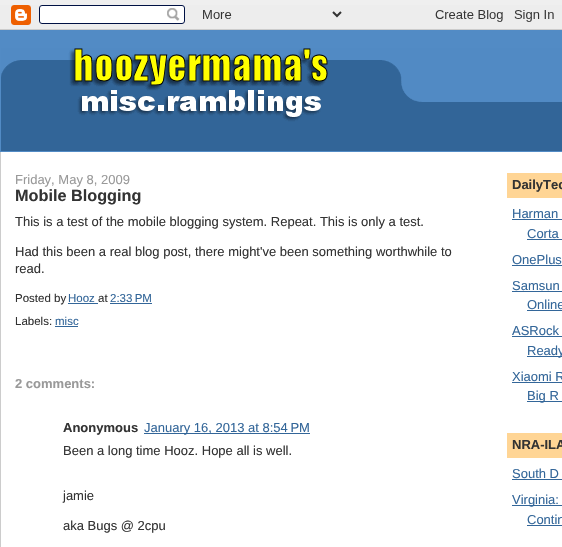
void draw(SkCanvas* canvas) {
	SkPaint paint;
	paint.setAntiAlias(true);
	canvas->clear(0xffefefef);
	canvas->drawImageRect(SkImages::DeferredFromEncodedData(SkData::MakeFromFileName("img1.png")), SkRect::MakeXYWH(0, 5, 562, 25), SkSamplingOptions());
	paint.setColor(0xff528bc5);
	canvas->drawRect(SkRect::MakeXYWH(0, 30, 562, 122), paint);
	canvas->drawImageRect(SkImages::DeferredFromEncodedData(SkData::MakeFromFileName("img2.png")), SkRect::MakeXYWH(1, 48, 561, 103), SkSamplingOptions());
	paint.setColor(0xffffffff);
	canvas->drawRect(SkRect::MakeXYWH(1, 152, 561, 395), paint);
	paint.setColor(0xffcccccc);
	canvas->drawRect(SkRect::MakeXYWH(0, 152, 1, 395), paint);
	SkFont f1(fontMgr->matchFamilyStyle("Liberation Sans", SkFontStyle::Normal()), 13);
	f1.setSubpixel(true);
	paint.setColor(0xff999999);
	canvas->drawString("Friday, May 8, 2009", 15, 184, f1, paint);
	SkFont f2(fontMgr->matchFamilyStyle("Liberation Sans", SkFontStyle::Bold()), 16.25);
	f2.setSubpixel(true);
	paint.setColor(0xff333333);
	canvas->drawString("Mobile Blogging", 15, 201, f2, paint);
	canvas->drawString("This is a test of the mobile blogging system. Repeat. This is only a test.", 15, 226, f1, paint);
	canvas->drawString("Had this been a real blog post, there might've been something worthwhile to", 15, 256, f1, paint);
	canvas->drawString("read.", 15, 273, f1, paint);
	SkFont f3(fontMgr->matchFamilyStyle("Liberation Sans", SkFontStyle::Normal()), 11.5);
	f3.setSubpixel(true);
	canvas->drawString("Posted by", 15, 302, f3, paint);
	paint.setColor(0xff336699);
	canvas->drawString("Hooz", 68, 302, f3, paint);
	canvas->drawRect(SkRect::MakeXYWH(68, 303, 30, 1), paint);
	paint.setColor(0xff333333);
	canvas->drawString("at", 98, 302, f3, paint);
	paint.setColor(0xff336699);
	canvas->drawString("2:33 PM", 110, 302, f3, paint);
	canvas->drawRect(SkRect::MakeXYWH(110, 303, 42, 1), paint);
	paint.setColor(0xff333333);
	canvas->drawString("Labels:", 15, 325, f3, paint);
	paint.setColor(0xff336699);
	canvas->drawString("misc", 55, 325, f3, paint);
	canvas->drawRect(SkRect::MakeXYWH(55, 326, 23, 1), paint);
	SkFont f4(fontMgr->matchFamilyStyle("Liberation Sans", SkFontStyle::Bold()), 13);
	f4.setSubpixel(true);
	paint.setColor(0xff999999);
	canvas->drawString("2 comments:", 15, 388, f4, paint);
	paint.setColor(0xff333333);
	canvas->drawString("Anonymous", 63, 432, f4, paint);
	paint.setColor(0xff336699);
	canvas->drawRect(SkRect::MakeXYWH(144, 433, 166, 1), paint);
	canvas->drawString("January 16, 2013 at 8:54 PM", 144, 432, f1, paint);
	paint.setColor(0xff333333);
	canvas->drawString("Been a long time Hooz. Hope all is well.", 63, 455, f1, paint);
	canvas->drawString("jamie", 63, 500, f1, paint);
	canvas->drawString("aka Bugs @ 2cpu", 63, 530, f1, paint);
	paint.setColor(0xffffd595);
	canvas->drawRect(SkRect::MakeXYWH(507, 173, 55, 25), paint);
	paint.setColor(0xff333333);
	canvas->drawString("DailyTec", 512, 189, f4, paint);
	paint.setColor(0xff336699);
	canvas->drawString("Harman", 512, 218, f1, paint);
	canvas->drawRect(SkRect::MakeXYWH(512, 219, 50, 1), paint);
	canvas->drawString("Corta", 527, 238, f1, paint);
	canvas->drawRect(SkRect::MakeXYWH(527, 239, 35, 1), paint);
	canvas->drawString("OnePlus", 512, 264, f1, paint);
	canvas->drawRect(SkRect::MakeXYWH(512, 265, 50, 1), paint);
	canvas->drawString("Samsun", 512, 290, f1, paint);
	canvas->drawRect(SkRect::MakeXYWH(512, 291, 50, 1), paint);
	canvas->drawString("Online", 527, 309, f1, paint);
	canvas->drawRect(SkRect::MakeXYWH(527, 310, 35, 1), paint);
	canvas->drawString("ASRock", 512, 335, f1, paint);
	canvas->drawRect(SkRect::MakeXYWH(512, 336, 50, 1), paint);
	canvas->drawRect(SkRect::MakeXYWH(527, 356, 35, 1), paint);
	canvas->drawString("Ready", 527, 355, f1, paint);
	canvas->drawString("Xiaomi R", 512, 381, f1, paint);
	canvas->drawRect(SkRect::MakeXYWH(512, 382, 50, 1), paint);
	canvas->drawRect(SkRect::MakeXYWH(527, 401, 35, 1), paint);
	canvas->drawString("Big R", 527, 400, f1, paint);
	paint.setColor(0xffffd595);
	canvas->drawRect(SkRect::MakeXYWH(507, 433, 55, 25), paint);
	paint.setColor(0xff333333);
	canvas->drawString("NRA-ILA", 512, 449, f4, paint);
	paint.setColor(0xff336699);
	canvas->drawString("South D", 512, 478, f1, paint);
	canvas->drawRect(SkRect::MakeXYWH(512, 479, 50, 1), paint);
	canvas->drawRect(SkRect::MakeXYWH(512, 505, 50, 1), paint);
	canvas->drawString("Virginia:", 512, 504, f1, paint);
	canvas->drawString("Contin", 527, 524, f1, paint);
	canvas->drawRect(SkRect::MakeXYWH(527, 525, 35, 1), paint);
}
